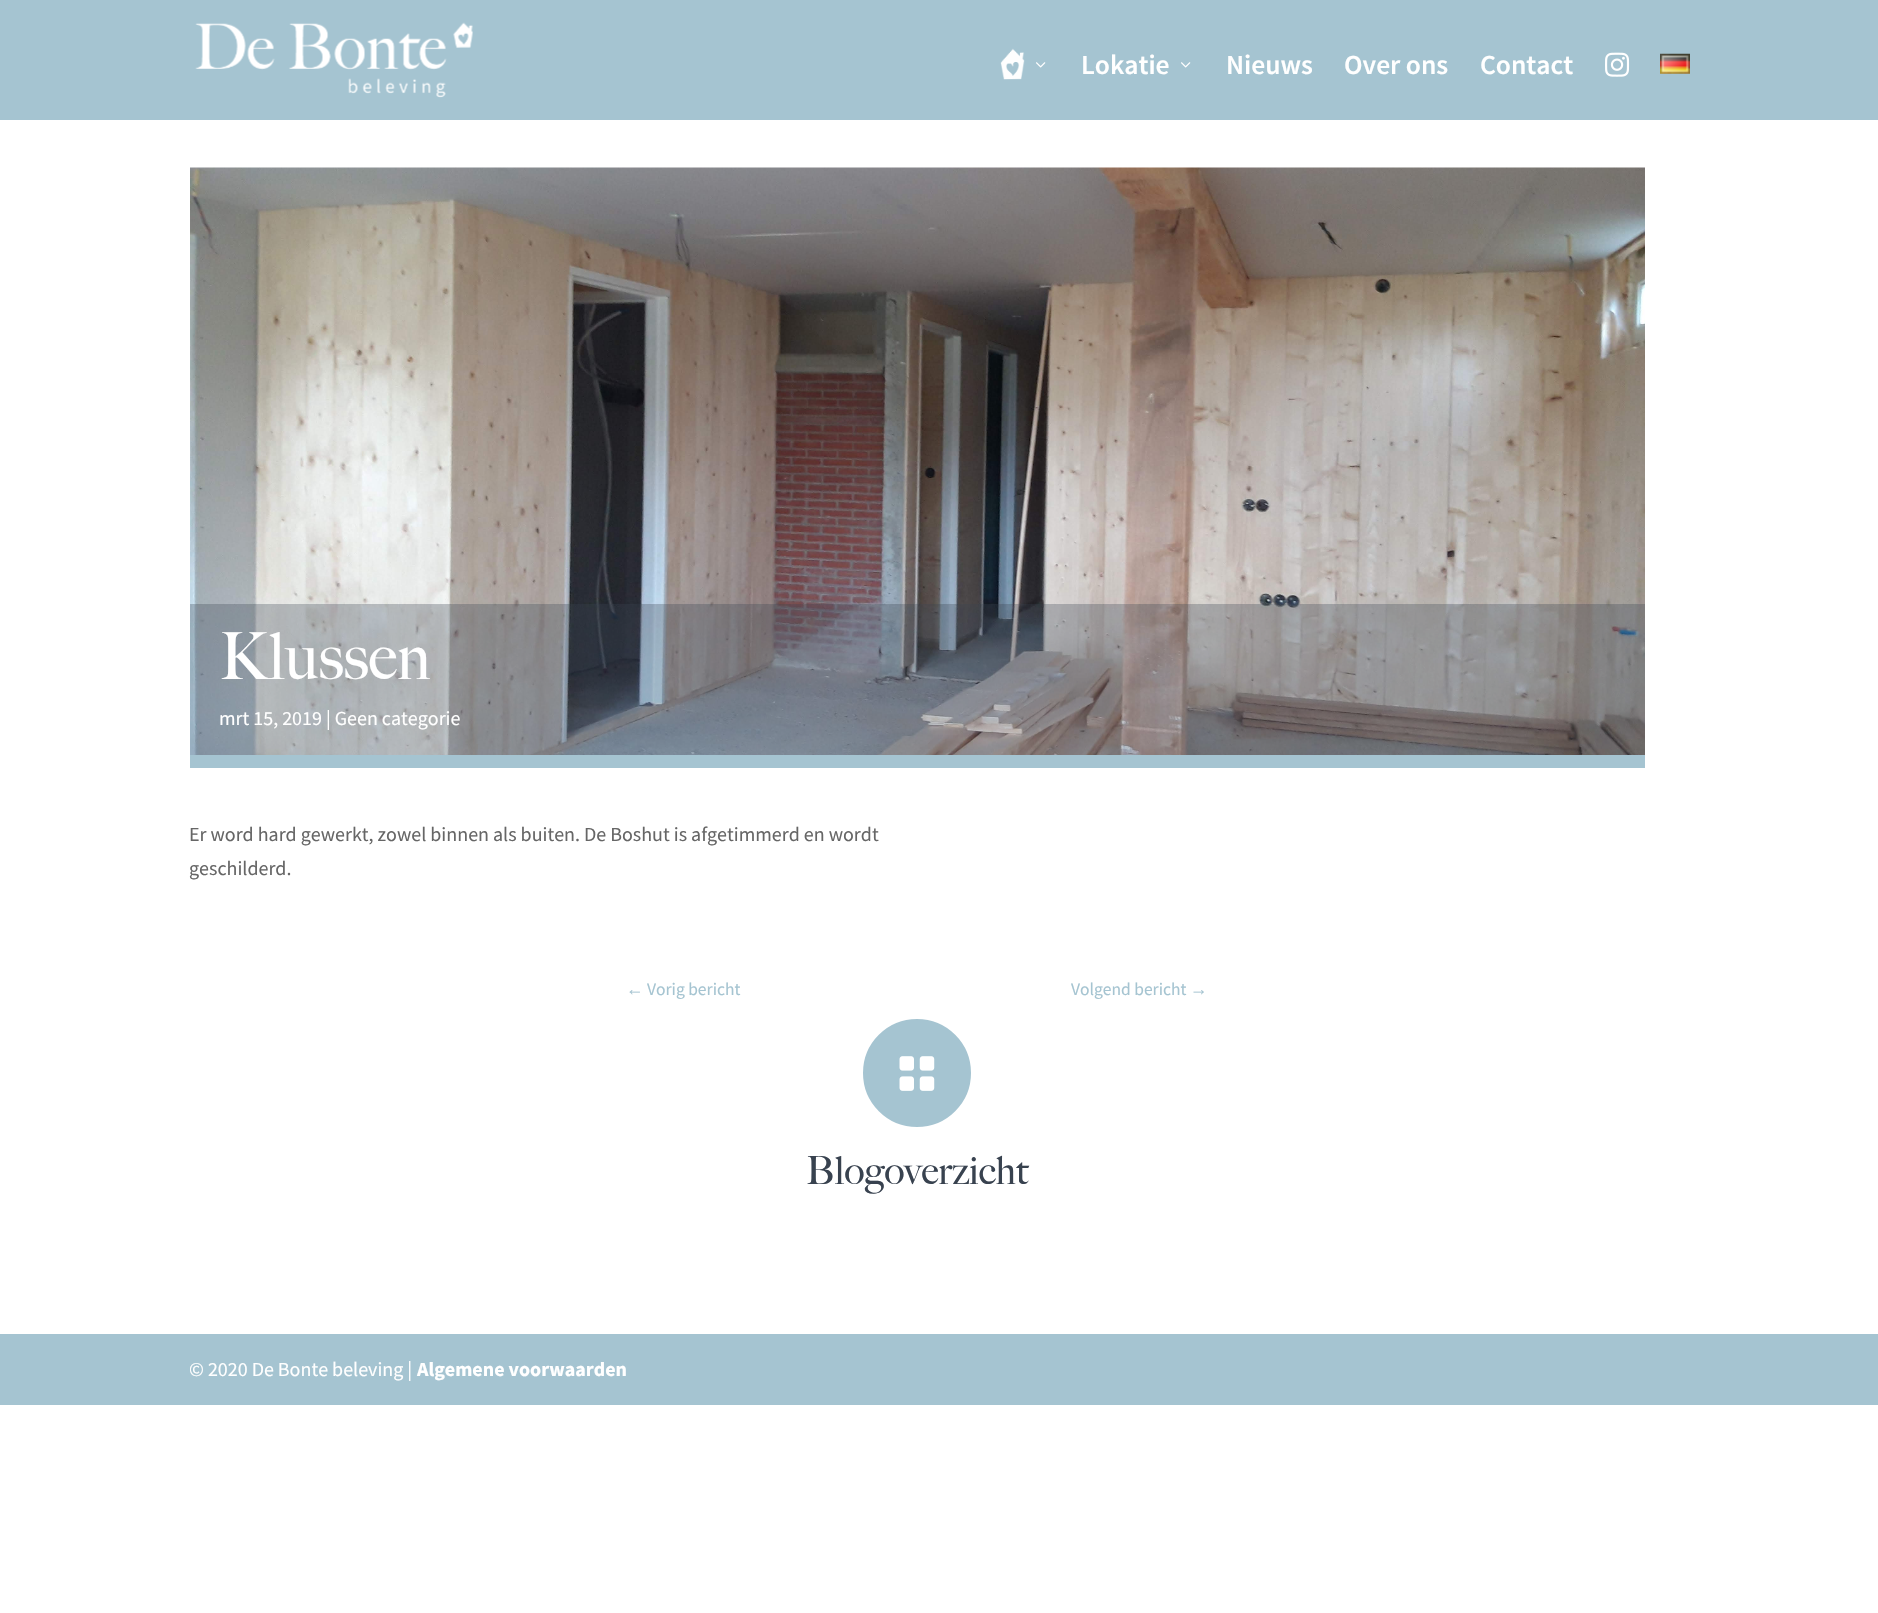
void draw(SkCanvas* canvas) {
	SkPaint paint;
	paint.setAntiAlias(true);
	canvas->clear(0xffffffff);
	paint.setColor(0xffa5c4d1);
	canvas->drawRect(SkRect::MakeXYWH(0, 0, 1878, 120), paint);
	canvas->drawImageRect(SkImages::DeferredFromEncodedData(SkData::MakeFromFileName("img1.png")), SkRect::MakeXYWH(195, 22, 278, 76), SkSamplingOptions());
	canvas->drawImageRect(SkImages::DeferredFromEncodedData(SkData::MakeFromFileName("img2.png")), SkRect::MakeXYWH(1000, 48, 25, 32), SkSamplingOptions());
	canvas->drawImageRect(SkImages::DeferredFromEncodedData(SkData::MakeFromFileName("img3.png")), SkRect::MakeXYWH(1036, 62, 10, 6), SkSamplingOptions());
	SkFont f1(fontMgr->matchFamilyStyle("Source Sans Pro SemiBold", SkFontStyle(600, SkFontStyle::kNormal_Width, SkFontStyle::kUpright_Slant)), 27.5);
	f1.setSubpixel(true);
	paint.setColor(0xffffffff);
	canvas->drawString("Lokatie", 1081, 74, f1, paint);
	canvas->drawImageRect(SkImages::DeferredFromEncodedData(SkData::MakeFromFileName("img3.png")), SkRect::MakeXYWH(1181, 62, 10, 6), SkSamplingOptions());
	canvas->drawString("Nieuws", 1226, 74, f1, paint);
	canvas->drawString("Over ons", 1344, 74, f1, paint);
	canvas->drawString("Contact", 1480, 74, f1, paint);
	canvas->drawImageRect(SkImages::DeferredFromEncodedData(SkData::MakeFromFileName("img4.png")), SkRect::MakeXYWH(1605, 52, 25, 25), SkSamplingOptions());
	canvas->drawImageRect(SkImages::DeferredFromEncodedData(SkData::MakeFromFileName("img5.png")), SkRect::MakeXYWH(1660, 53, 30, 21), SkSamplingOptions());
	canvas->drawImageRect(SkImages::DeferredFromEncodedData(SkData::MakeFromFileName("img6.png")), SkRect::MakeXYWH(190, 167, 1455, 588), SkSamplingOptions());
	paint.setColor(0xffa5c4d1);
	canvas->drawRect(SkRect::MakeXYWH(190, 755, 1455, 13), paint);
	paint.setColor(0x4d38424f);
	canvas->drawRect(SkRect::MakeXYWH(190, 604, 1455, 151), paint);
	SkFont f2(fontMgr->matchFamilyStyle("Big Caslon", SkFontStyle(500, SkFontStyle::kNormal_Width, SkFontStyle::kUpright_Slant)), 65);
	f2.setSubpixel(true);
	paint.setColor(0xffffffff);
	canvas->drawString("Klussen", 219, 679, f2, paint);
	SkFont f3(fontMgr->matchFamilyStyle("Source Sans Pro", SkFontStyle::Normal()), 20);
	f3.setSubpixel(true);
	canvas->drawString("mrt 15, 2019 | Geen categorie", 219, 725, f3, paint);
	paint.setColor(0xff666666);
	canvas->drawString("Er word hard gewerkt, zowel binnen als buiten. De Boshut is afgetimmerd en wordt", 189, 841, f3, paint);
	canvas->drawString("geschilderd.", 189, 875, f3, paint);
	SkFont f4(fontMgr->matchFamilyStyle("Liberation Sans", SkFontStyle::Normal()), 17.5);
	f4.setSubpixel(true);
	paint.setColor(0xffa5c4d1);
	canvas->drawString("←", 626, 995, f4, paint);
	SkFont f5(fontMgr->matchFamilyStyle("Source Sans Pro", SkFontStyle::Normal()), 17.5);
	f5.setSubpixel(true);
	canvas->drawString("Vorig bericht", 647, 995, f5, paint);
	canvas->drawString("Volgend bericht", 1071, 995, f5, paint);
	canvas->drawString("→", 1190, 995, f4, paint);
	canvas->drawCircle(917, 1073, 56, paint);
	paint.setStroke(true);
	paint.setStrokeWidth(4);
	paint.setColor(0xffffffff);
	canvas->drawCircle(917, 1073, 56, paint);
	canvas->drawImageRect(SkImages::DeferredFromEncodedData(SkData::MakeFromFileName("img7.png")), SkRect::MakeXYWH(899, 1056, 36, 35), SkSamplingOptions());
	SkFont f6(fontMgr->matchFamilyStyle("Big Caslon", SkFontStyle(500, SkFontStyle::kNormal_Width, SkFontStyle::kUpright_Slant)), 38.75);
	f6.setSubpixel(true);
	paint.setStroke(false);
	paint.setColor(0xff38424f);
	canvas->drawString("Blogoverzicht", 806, 1184, f6, paint);
	paint.setColor(0xffa5c4d1);
	canvas->drawRect(SkRect::MakeXYWH(0, 1334, 1878, 71), paint);
	paint.setColor(0xffffffff);
	canvas->drawString("© 2020 De Bonte beleving |", 189, 1376, f3, paint);
	SkFont f7(fontMgr->matchFamilyStyle("Source Sans Pro", SkFontStyle::Bold()), 20);
	f7.setSubpixel(true);
	canvas->drawString("Algemene voorwaarden", 417, 1376, f7, paint);
}
